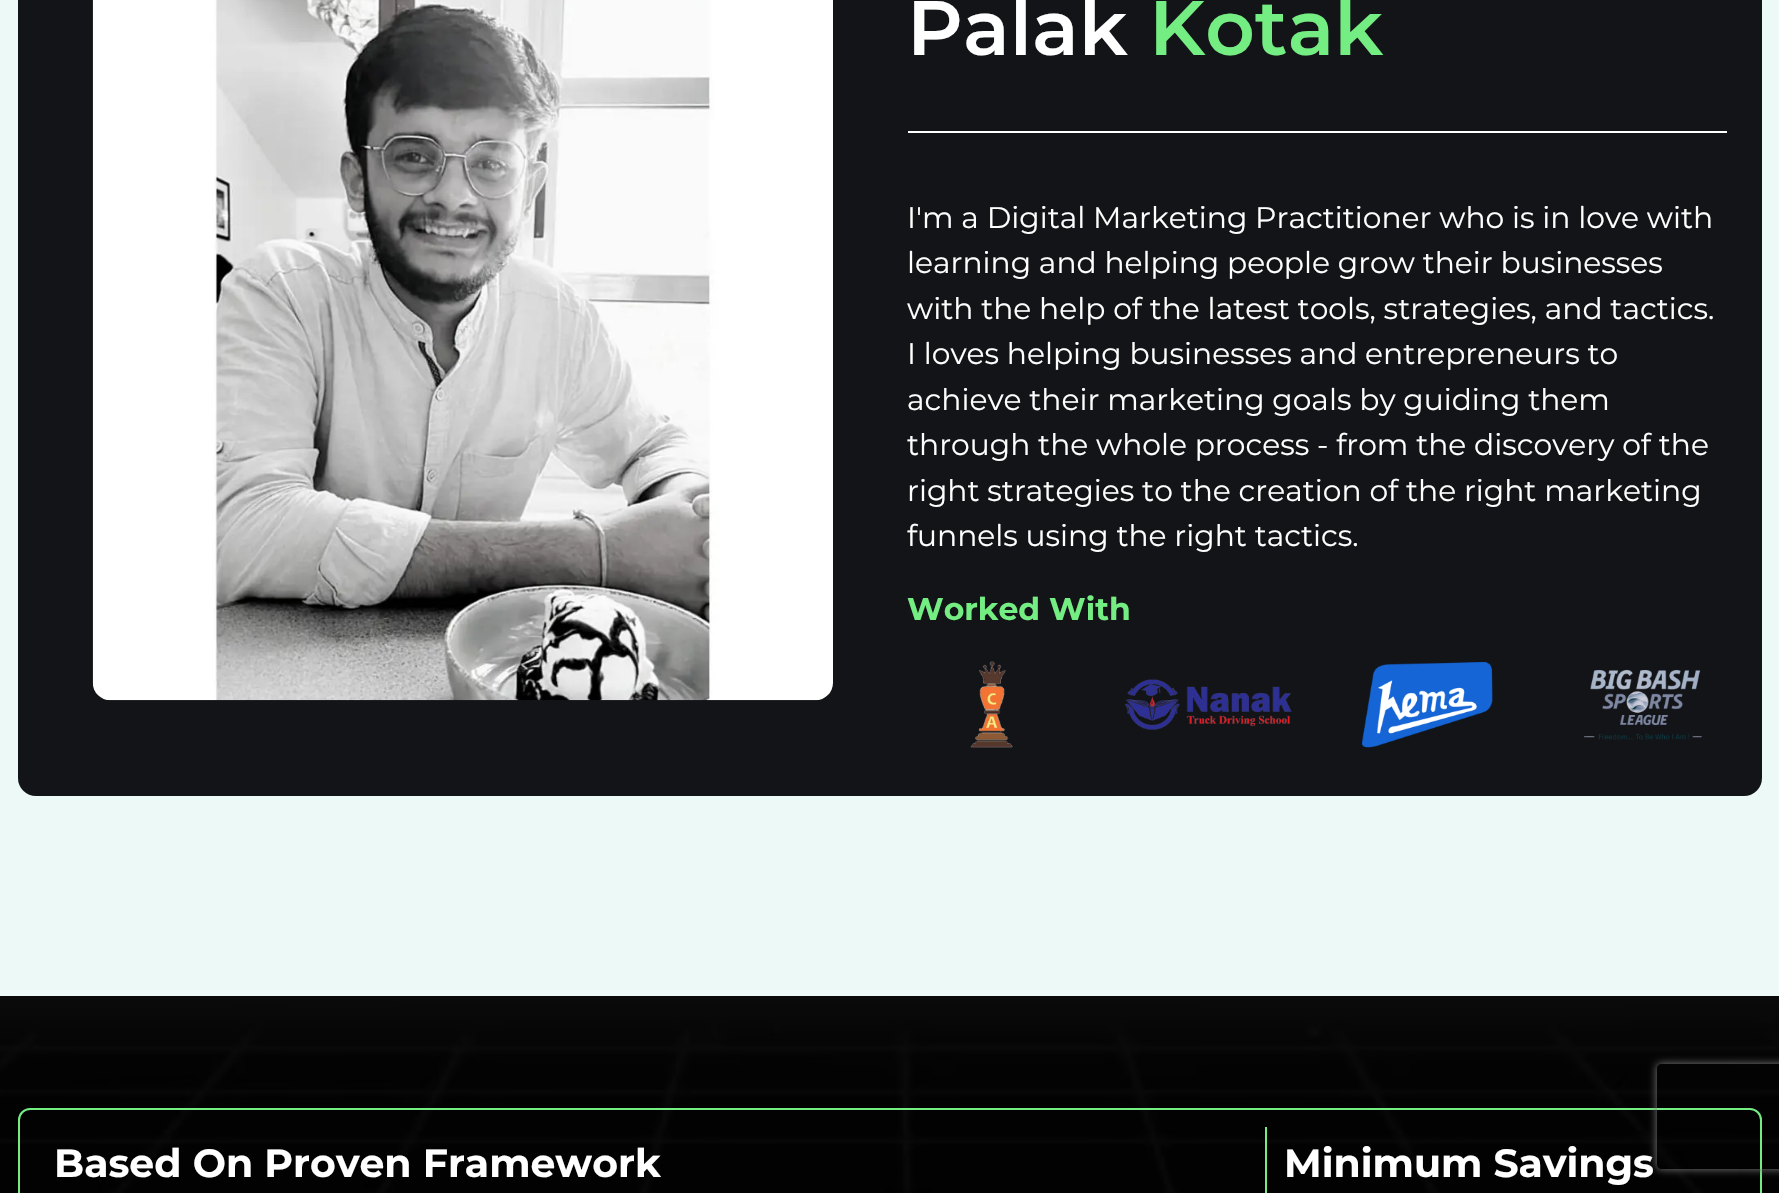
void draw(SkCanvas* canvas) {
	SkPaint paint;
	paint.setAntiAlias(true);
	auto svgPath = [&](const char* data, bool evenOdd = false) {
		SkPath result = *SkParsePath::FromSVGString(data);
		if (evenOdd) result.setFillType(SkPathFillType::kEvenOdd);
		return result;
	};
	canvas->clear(0xffecf9f7);
	paint.setColor(0xff131418);
	canvas->drawRoundRect(SkRect::MakeXYWH(18, -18, 1744, 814), 18, 18, paint);
	canvas->drawImageRect(SkImages::DeferredFromEncodedData(SkData::MakeFromFileName("img1.png")), SkRect::MakeXYWH(92, 0, 741, 701), SkSamplingOptions());
	SkFont f1(fontMgr->matchFamilyStyle("Montserrat", SkFontStyle(600, SkFontStyle::kNormal_Width, SkFontStyle::kUpright_Slant)), 77);
	f1.setSubpixel(true);
	paint.setColor(0xffffffff);
	canvas->drawString("Palak", 907, 55, f1, paint);
	paint.setColor(0xff74ed83);
	canvas->drawString("Kotak", 1149, 55, f1, paint);
	paint.setColor(0xffffffff);
	canvas->drawRect(SkRect::MakeXYWH(908, 131, 819, 2), paint);
	SkFont f2(fontMgr->matchFamilyStyle("Montserrat", SkFontStyle::Normal()), 29.75);
	f2.setSubpixel(true);
	canvas->drawString("I'm a Digital Marketing Practitioner who is in love with", 907, 228, f2, paint);
	canvas->drawString("learning and helping people grow their businesses", 907, 273, f2, paint);
	canvas->drawString("with the help of the latest tools, strategies, and tactics.", 907, 319, f2, paint);
	canvas->drawString("I loves helping businesses and entrepreneurs to", 907, 364, f2, paint);
	canvas->drawString("achieve their marketing goals by guiding them", 907, 410, f2, paint);
	canvas->drawString("through the whole process - from the discovery of the", 907, 455, f2, paint);
	canvas->drawString("right strategies to the creation of the right marketing", 907, 501, f2, paint);
	canvas->drawString("funnels using the right tactics.", 907, 546, f2, paint);
	SkFont f3(fontMgr->matchFamilyStyle("Montserrat", SkFontStyle::Bold()), 31.5);
	f3.setSubpixel(true);
	paint.setColor(0xff74ed83);
	canvas->drawString("Worked With", 907, 620, f3, paint);
	canvas->drawImageRect(SkImages::DeferredFromEncodedData(SkData::MakeFromFileName("img2.png")), SkRect::MakeXYWH(970, 661, 43, 87), SkSamplingOptions());
	canvas->drawImageRect(SkImages::DeferredFromEncodedData(SkData::MakeFromFileName("img3.png")), SkRect::MakeXYWH(1125, 679, 167, 51), SkSamplingOptions());
	canvas->drawImageRect(SkImages::DeferredFromEncodedData(SkData::MakeFromFileName("img4.png")), SkRect::MakeXYWH(1362, 662, 131, 86), SkSamplingOptions());
	canvas->drawImageRect(SkImages::DeferredFromEncodedData(SkData::MakeFromFileName("img5.png")), SkRect::MakeXYWH(1583, 669, 119, 71), SkSamplingOptions());
	canvas->drawImageRect(SkImages::DeferredFromEncodedData(SkData::MakeFromFileName("img6.png")), SkRect::MakeXYWH(0, 996, 1779, 197), SkSamplingOptions());
	paint.setStroke(true);
	paint.setStrokeWidth(2);
	canvas->drawRoundRect(SkRect::MakeXYWH(19, 1109, 1742, 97), 11, 11, paint);
	SkFont f4(fontMgr->matchFamilyStyle("Montserrat", SkFontStyle::Bold()), 39.4);
	f4.setSubpixel(true);
	paint.setStroke(false);
	paint.setColor(0xffffffff);
	canvas->drawString("Based On Proven Framework", 54, 1177, f4, paint);
	paint.setColor(0xff74ed83);
	canvas->drawRect(SkRect::MakeXYWH(1265, 1127, 2, 66), paint);
	paint.setColor(0xffffffff);
	canvas->drawString("Minimum Savings", 1284, 1177, f4, paint);
	canvas->save();
	canvas->clipPath(svgPath("M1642 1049H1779V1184H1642ZM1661 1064H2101C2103 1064 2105 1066 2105 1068V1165C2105 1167 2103 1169 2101 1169H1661C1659 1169 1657 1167 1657 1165V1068C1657 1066 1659 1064 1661 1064Z", true), true);
	paint.setColor(0xff808080);
	paint.setMaskFilter(SkMaskFilter::MakeBlur(kNormal_SkBlurStyle, 4.5));
	canvas->drawRoundRect(SkRect::MakeXYWH(1657, 1064, 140, 105), 4, 4, paint);
	paint.setMaskFilter(nullptr);
	canvas->restore();
}
